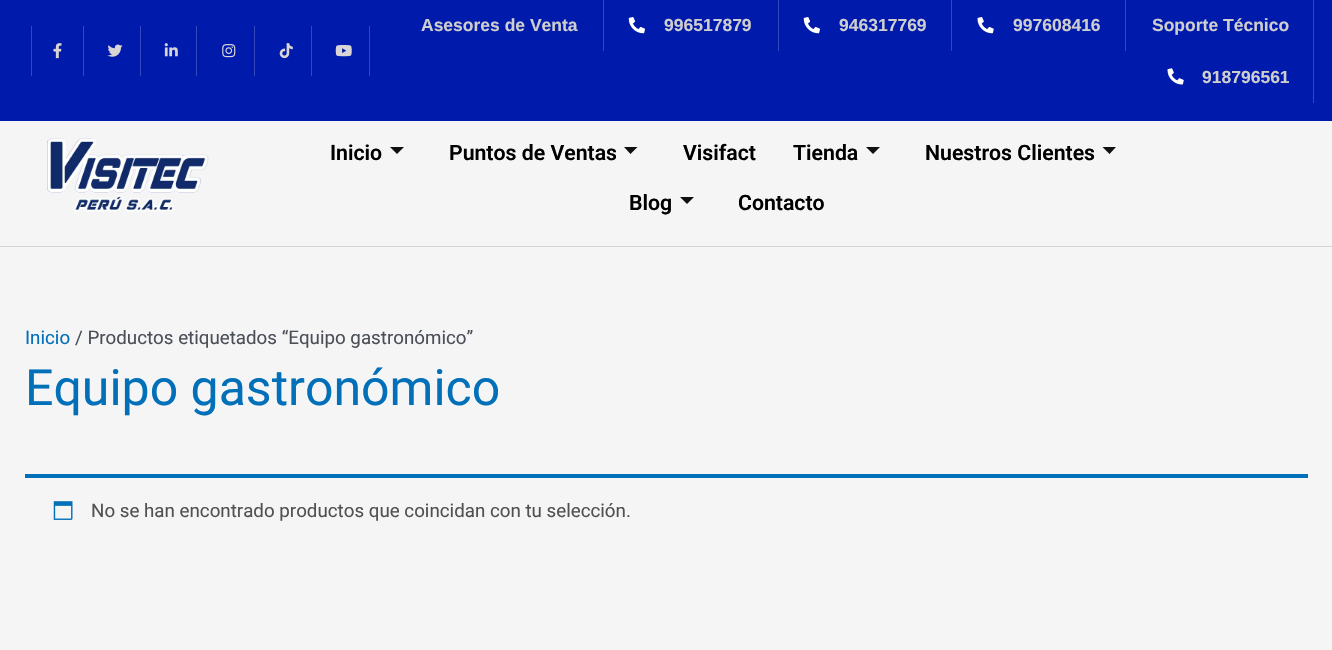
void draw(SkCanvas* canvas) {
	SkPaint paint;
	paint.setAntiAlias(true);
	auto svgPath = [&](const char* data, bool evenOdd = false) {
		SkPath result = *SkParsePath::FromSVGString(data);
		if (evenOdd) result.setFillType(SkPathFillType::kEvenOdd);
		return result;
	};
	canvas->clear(0xfff5f5f5);
	paint.setColor(0xff001aac);
	canvas->drawRect(SkRect::MakeXYWH(0, 0, 1332, 121), paint);
	paint.setColor(0xff3348bd);
	canvas->drawRect(SkRect::MakeXYWH(31, 26, 1, 50), paint);
	canvas->drawRect(SkRect::MakeXYWH(83, 26, 1, 50), paint);
	canvas->drawImageRect(SkImages::DeferredFromEncodedData(SkData::MakeFromFileName("img1.png")), SkRect::MakeXYWH(53, 43, 9, 16), SkSamplingOptions());
	canvas->drawRect(SkRect::MakeXYWH(140, 26, 1, 50), paint);
	canvas->drawImageRect(SkImages::DeferredFromEncodedData(SkData::MakeFromFileName("img2.png")), SkRect::MakeXYWH(107, 44, 16, 13), SkSamplingOptions());
	canvas->drawRect(SkRect::MakeXYWH(196, 26, 1, 50), paint);
	canvas->drawImageRect(SkImages::DeferredFromEncodedData(SkData::MakeFromFileName("img3.png")), SkRect::MakeXYWH(164, 43, 14, 14), SkSamplingOptions());
	canvas->drawRect(SkRect::MakeXYWH(254, 26, 1, 50), paint);
	canvas->drawImageRect(SkImages::DeferredFromEncodedData(SkData::MakeFromFileName("img4.png")), SkRect::MakeXYWH(222, 44, 14, 14), SkSamplingOptions());
	canvas->drawRect(SkRect::MakeXYWH(311, 26, 1, 50), paint);
	canvas->drawImageRect(SkImages::DeferredFromEncodedData(SkData::MakeFromFileName("img5.png")), SkRect::MakeXYWH(279, 43, 14, 16), SkSamplingOptions());
	canvas->drawRect(SkRect::MakeXYWH(369, 26, 1, 50), paint);
	canvas->drawImageRect(SkImages::DeferredFromEncodedData(SkData::MakeFromFileName("img6.png")), SkRect::MakeXYWH(335, 45, 17, 12), SkSamplingOptions());
	canvas->drawRect(SkRect::MakeXYWH(1313, 0, 1, 103), paint);
	SkFont f1(fontMgr->matchFamilyStyle("Liberation Sans", SkFontStyle::Bold()), 17.5);
	f1.setSubpixel(true);
	paint.setColor(0xffcfcece);
	canvas->drawString("Asesores de Venta", 421, 31, f1, paint);
	paint.setColor(0xff3348bd);
	canvas->drawRect(SkRect::MakeXYWH(603, 0, 1, 51), paint);
	canvas->drawImageRect(SkImages::DeferredFromEncodedData(SkData::MakeFromFileName("img7.png")), SkRect::MakeXYWH(628, 17, 17, 17), SkSamplingOptions());
	paint.setColor(0xffcfcece);
	canvas->drawString("996517879", 664, 31, f1, paint);
	paint.setColor(0xff3348bd);
	canvas->drawRect(SkRect::MakeXYWH(778, 0, 1, 51), paint);
	canvas->drawImageRect(SkImages::DeferredFromEncodedData(SkData::MakeFromFileName("img7.png")), SkRect::MakeXYWH(803, 17, 17, 17), SkSamplingOptions());
	paint.setColor(0xffcfcece);
	canvas->drawString("946317769", 839, 31, f1, paint);
	paint.setColor(0xff3348bd);
	canvas->drawRect(SkRect::MakeXYWH(951, 0, 1, 51), paint);
	canvas->drawImageRect(SkImages::DeferredFromEncodedData(SkData::MakeFromFileName("img8.png")), SkRect::MakeXYWH(977, 17, 17, 17), SkSamplingOptions());
	paint.setColor(0xffcfcece);
	canvas->drawString("997608416", 1013, 31, f1, paint);
	paint.setColor(0xff3348bd);
	canvas->drawRect(SkRect::MakeXYWH(1125, 0, 1, 51), paint);
	paint.setColor(0xffcfcece);
	canvas->drawString("Soporte Técnico", 1152, 31, f1, paint);
	canvas->drawImageRect(SkImages::DeferredFromEncodedData(SkData::MakeFromFileName("img9.png")), SkRect::MakeXYWH(1167, 68, 17, 17), SkSamplingOptions());
	canvas->drawString("918796561", 1202, 83, f1, paint);
	paint.setColor(0xffd3d5d9);
	canvas->drawRect(SkRect::MakeXYWH(0, 246, 1332, 1), paint);
	canvas->drawImageRect(SkImages::DeferredFromEncodedData(SkData::MakeFromFileName("img10.png")), SkRect::MakeXYWH(47, 138, 162, 74), SkSamplingOptions());
	SkFont f2(fontMgr->matchFamilyStyle("Roboto", SkFontStyle(600, SkFontStyle::kNormal_Width, SkFontStyle::kUpright_Slant)), 21.25);
	f2.setSubpixel(true);
	paint.setColor(0xff000000);
	canvas->drawString("Inicio", 330, 160, f2, paint);
	paint.setColor(0xff101010);
	canvas->drawPath(svgPath("M390 147H404L397 154Z"), paint);
	paint.setColor(0xff000000);
	canvas->drawString("Puntos de Ventas", 449, 160, f2, paint);
	paint.setColor(0xff101010);
	canvas->drawPath(svgPath("M624 147H637.5L630.5 154Z"), paint);
	paint.setColor(0xff000000);
	canvas->drawString("Visifact", 683, 160, f2, paint);
	canvas->drawString("Tienda", 793, 160, f2, paint);
	paint.setColor(0xff101010);
	canvas->drawPath(svgPath("M866 147H880L873 154Z"), paint);
	paint.setColor(0xff000000);
	canvas->drawString("Nuestros Clientes", 925, 160, f2, paint);
	paint.setColor(0xff101010);
	canvas->drawPath(svgPath("M1102.5 147H1116L1109.5 154Z"), paint);
	paint.setColor(0xff000000);
	canvas->drawString("Blog", 629, 210, f2, paint);
	paint.setColor(0xff101010);
	canvas->drawPath(svgPath("M680 197H694L687 204Z"), paint);
	paint.setColor(0xff000000);
	canvas->drawString("Contacto", 738, 210, f2, paint);
	SkFont f3(fontMgr->matchFamilyStyle("Roboto", SkFontStyle::Normal()), 18.75);
	f3.setSubpixel(true);
	paint.setColor(0xff0170b9);
	canvas->drawString("Inicio", 25, 344, f3, paint);
	paint.setColor(0xff4b4f58);
	canvas->drawString("/ Productos etiquetados “Equipo gastronómico”", 75, 344, f3, paint);
	SkFont f4(fontMgr->matchFamilyStyle("Roboto", SkFontStyle::Normal()), 50);
	f4.setSubpixel(true);
	paint.setColor(0xff0170b9);
	canvas->drawString("Equipo gastronómico", 25, 405, f4, paint);
	canvas->drawRect(SkRect::MakeXYWH(25, 474, 1283, 4), paint);
	canvas->drawImageRect(SkImages::DeferredFromEncodedData(SkData::MakeFromFileName("img11.png")), SkRect::MakeXYWH(53, 501, 20, 19), SkSamplingOptions());
	paint.setColor(0xff515151);
	canvas->drawString("No se han encontrado productos que coincidan con tu selección.", 91, 517, f3, paint);
}
